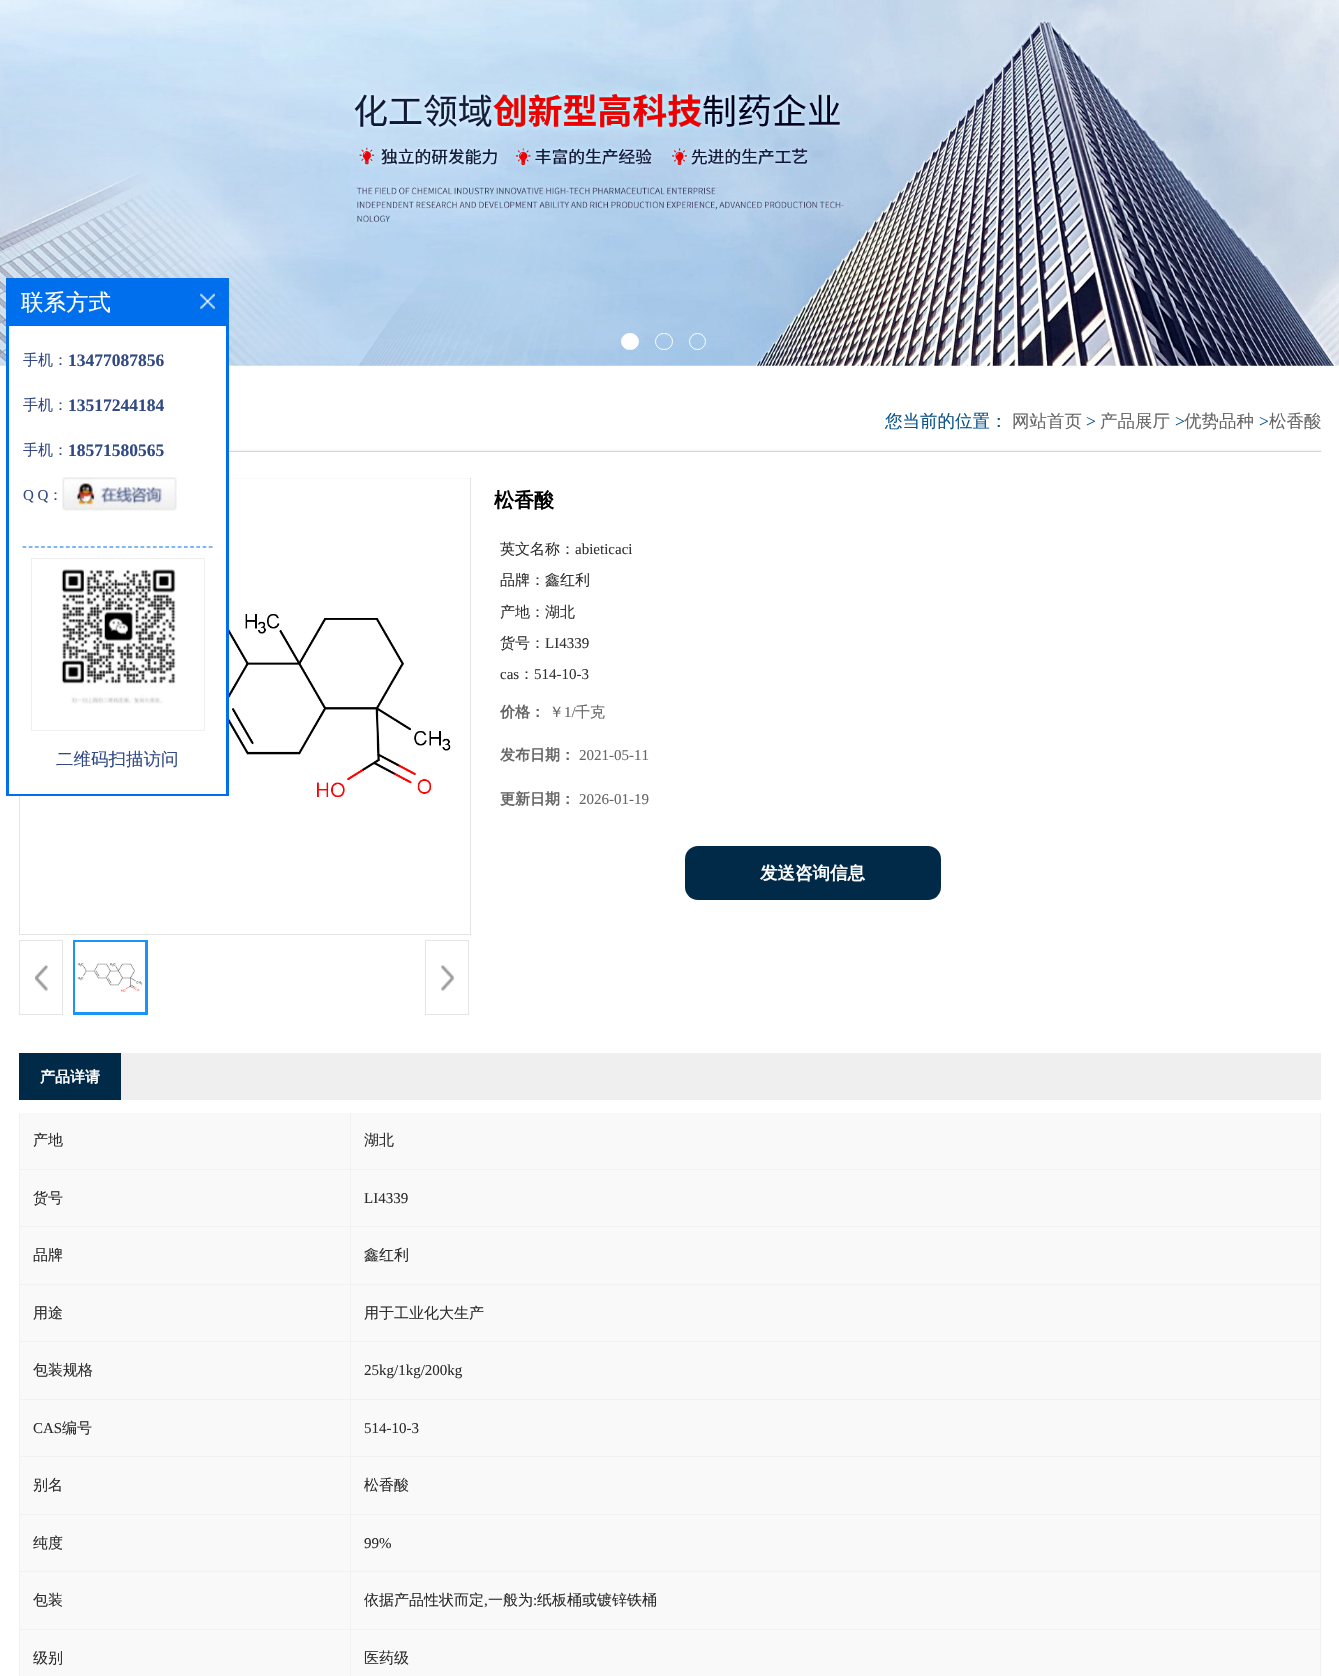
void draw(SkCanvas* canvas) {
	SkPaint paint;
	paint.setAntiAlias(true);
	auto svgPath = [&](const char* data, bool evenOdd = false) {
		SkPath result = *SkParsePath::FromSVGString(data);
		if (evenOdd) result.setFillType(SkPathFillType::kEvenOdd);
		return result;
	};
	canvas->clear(0xffffffff);
	canvas->drawImageRect(SkImages::DeferredFromEncodedData(SkData::MakeFromFileName("img1.png")), SkRect::MakeXYWH(0, 0, 1339, 366), SkSamplingOptions());
	paint.setColor(0xffffffff);
	canvas->drawRoundRect(SkRect::MakeXYWH(621.5, 333.5, 17, 16), 8, 8, paint);
	paint.setStroke(true);
	paint.setStrokeWidth(1);
	canvas->drawRoundRect(SkRect::MakeXYWH(621.5, 333.5, 17, 16), 8, 8, paint);
	canvas->drawRoundRect(SkRect::MakeXYWH(655.5, 333.5, 17, 16), 8, 8, paint);
	canvas->drawCircle(697.5, 341.5, 8, paint);
	paint.setColor(0xffe4e4e4);
	canvas->drawRect(SkRect::MakeXYWH(19.5, 478.5, 451, 456), paint);
	canvas->drawImageRect(SkImages::DeferredFromEncodedData(SkData::MakeFromFileName("img6.png")), SkRect::MakeXYWH(20, 478, 450, 319), SkSamplingOptions());
	paint.setStroke(false);
	paint.setColor(0xff006fed);
	canvas->drawRect(SkRect::MakeXYWH(6, 278, 223, 518), paint);
	SkFont f1(fontMgr->matchFamilyStyle("WenQuanYi Zen Hei", SkFontStyle(500, SkFontStyle::kNormal_Width, SkFontStyle::kUpright_Slant)), 22.5);
	f1.setSubpixel(true);
	paint.setColor(0xffffffff);
	canvas->drawString("联系方式", 21, 310, f1, paint);
	canvas->drawImageRect(SkImages::DeferredFromEncodedData(SkData::MakeFromFileName("img2.png")), SkRect::MakeXYWH(200, 293, 15, 16), SkSamplingOptions());
	canvas->drawRect(SkRect::MakeXYWH(9, 326, 217, 468), paint);
	paint.setStroke(true);
	paint.setStrokeWidth(1.2);
	paint.setColor(0xff006fed);
	paint.setPathEffect(SkDashPathEffect::Make({{3.75f, 2.46f}}, 0));
	canvas->drawPath(svgPath("M22.5 547H212.5"), paint);
	paint.setPathEffect(nullptr);
	SkFont f2(fontMgr->matchFamilyStyle("WenQuanYi Zen Hei", SkFontStyle(500, SkFontStyle::kNormal_Width, SkFontStyle::kUpright_Slant)), 15);
	f2.setSubpixel(true);
	paint.setStroke(false);
	paint.setColor(0xff314985);
	canvas->drawString("手机：", 23, 365, f2, paint);
	SkFont f3(fontMgr->matchFamilyStyle("Liberation Serif", SkFontStyle::Bold()), 17.5);
	f3.setSubpixel(true);
	canvas->drawString("13477087856", 68, 366, f3, paint);
	canvas->drawString("手机：", 23, 410, f2, paint);
	canvas->drawString("13517244184", 68, 411, f3, paint);
	canvas->drawString("手机：", 23, 455, f2, paint);
	canvas->drawString("18571580565", 68, 456, f3, paint);
	SkFont f4(fontMgr->matchFamilyStyle("Liberation Serif", SkFontStyle::Normal()), 15);
	f4.setSubpixel(true);
	canvas->drawString("Q Q", 23, 500, f4, paint);
	canvas->drawString("：", 48, 500, f2, paint);
	canvas->drawImageRect(SkImages::DeferredFromEncodedData(SkData::MakeFromFileName("img3.png")), SkRect::MakeXYWH(62, 477, 115, 34), SkSamplingOptions());
	paint.setStroke(true);
	paint.setStrokeWidth(1);
	paint.setColor(0xffeeeeee);
	canvas->drawRect(SkRect::MakeXYWH(31.5, 558.5, 173, 172), paint);
	canvas->drawImageRect(SkImages::DeferredFromEncodedData(SkData::MakeFromFileName("img4.png")), SkRect::MakeXYWH(61, 569, 115, 135), SkSamplingOptions());
	SkFont f5(fontMgr->matchFamilyStyle("WenQuanYi Zen Hei", SkFontStyle(500, SkFontStyle::kNormal_Width, SkFontStyle::kUpright_Slant)), 17.5);
	f5.setSubpixel(true);
	paint.setStroke(false);
	paint.setColor(0xff314985);
	canvas->drawString("二维码扫描访问", 56, 765, f5, paint);
	canvas->drawImageRect(SkImages::DeferredFromEncodedData(SkData::MakeFromFileName("img5.png")), SkRect::MakeXYWH(229, 448, 1093, 4), SkSamplingOptions());
	paint.setColor(0xff0c548c);
	canvas->drawString("您当前的位置：", 885, 427, f5, paint);
	paint.setColor(0xff666666);
	canvas->drawString("网站首页", 1012, 427, f5, paint);
	SkFont f6(fontMgr->matchFamilyStyle("Liberation Serif", SkFontStyle::Normal()), 17.5);
	f6.setSubpixel(true);
	paint.setColor(0xff0c548c);
	canvas->drawString(">", 1086, 427, f6, paint);
	paint.setColor(0xff666666);
	canvas->drawString("产品展厅", 1100, 427, f5, paint);
	paint.setColor(0xff0c548c);
	canvas->drawString(">", 1175, 427, f6, paint);
	paint.setColor(0xff666666);
	canvas->drawString("优势品种", 1184, 427, f5, paint);
	paint.setColor(0xff0c548c);
	canvas->drawString(">", 1259, 427, f6, paint);
	paint.setColor(0xff666666);
	canvas->drawString("松香酸", 1269, 427, f5, paint);
	canvas->drawImageRect(SkImages::DeferredFromEncodedData(SkData::MakeFromFileName("img7.png")), SkRect::MakeXYWH(35, 964, 13, 27), SkSamplingOptions());
	paint.setStroke(true);
	paint.setColor(0xffe5e5e5);
	canvas->drawRect(SkRect::MakeXYWH(19.5, 940.5, 43, 74), paint);
	paint.setStrokeWidth(3);
	paint.setColor(0xff1b94f6);
	canvas->drawRect(SkRect::MakeXYWH(74.5, 941.5, 72, 72), paint);
	canvas->drawImageRect(SkImages::DeferredFromEncodedData(SkData::MakeFromFileName("img8.png")), SkRect::MakeXYWH(75, 942, 70, 70), SkSamplingOptions());
	canvas->drawImageRect(SkImages::DeferredFromEncodedData(SkData::MakeFromFileName("img9.png")), SkRect::MakeXYWH(441, 964, 13, 27), SkSamplingOptions());
	paint.setStrokeWidth(1);
	paint.setColor(0xffe5e5e5);
	canvas->drawRect(SkRect::MakeXYWH(425.5, 940.5, 43, 74), paint);
	SkFont f7(fontMgr->matchFamilyStyle("WenQuanYi Zen Hei", SkFontStyle::Bold()), 20);
	f7.setSubpixel(true);
	paint.setStroke(false);
	paint.setColor(0xff000000);
	canvas->drawString("松香酸", 494, 507, f7, paint);
	paint.setColor(0xff333333);
	canvas->drawString("英文名称：", 500, 554, f2, paint);
	canvas->drawString("abieticaci", 575, 554, f4, paint);
	canvas->drawString("品牌：鑫红利", 500, 585, f2, paint);
	canvas->drawString("产地：湖北", 500, 617, f2, paint);
	canvas->drawString("货号：", 500, 648, f2, paint);
	canvas->drawString("LI4339", 545, 648, f4, paint);
	canvas->drawString("cas", 500, 679, f4, paint);
	canvas->drawString("：", 519, 679, f2, paint);
	canvas->drawString("514-10-3", 534, 679, f4, paint);
	SkFont f8(fontMgr->matchFamilyStyle("WenQuanYi Zen Hei", SkFontStyle::Bold()), 15);
	f8.setSubpixel(true);
	paint.setColor(0xff666666);
	canvas->drawString("价格：", 500, 717, f8, paint);
	canvas->drawString("￥", 549, 717, f2, paint);
	canvas->drawString("1/", 564, 717, f4, paint);
	canvas->drawString("千克", 575, 717, f2, paint);
	canvas->drawString("发布日期：", 500, 760, f8, paint);
	canvas->drawString("2021-05-11", 579, 760, f4, paint);
	canvas->drawString("更新日期：", 500, 804, f8, paint);
	canvas->drawString("2026-01-19", 579, 804, f4, paint);
	paint.setColor(0xff002a48);
	canvas->drawRoundRect(SkRect::MakeXYWH(685, 846, 256, 54), 13, 13, paint);
	SkFont f9(fontMgr->matchFamilyStyle("WenQuanYi Zen Hei", SkFontStyle::Bold()), 17.5);
	f9.setSubpixel(true);
	paint.setColor(0xffffffff);
	canvas->drawString("发送咨询信息", 760, 879, f9, paint);
	paint.setColor(0xffefefef);
	canvas->drawRect(SkRect::MakeXYWH(121, 1053, 1200, 47), paint);
	paint.setColor(0xff002a48);
	canvas->drawRect(SkRect::MakeXYWH(19, 1053, 102, 47), paint);
	paint.setColor(0xffffffff);
	canvas->drawString("产品详请", 40, 1082, f8, paint);
	paint.setColor(0xfff1f1f1);
	canvas->drawRect(SkRect::MakeXYWH(19, 1113, 1, 563), paint);
	paint.setColor(0xfff9f9f9);
	canvas->drawRect(SkRect::MakeXYWH(20, 1113, 1300, 563), paint);
	paint.setColor(0xfff1f1f1);
	canvas->drawRect(SkRect::MakeXYWH(350, 1113, 1, 563), paint);
	canvas->drawRect(SkRect::MakeXYWH(20, 1169, 331, 1), paint);
	paint.setColor(0xff2d2d2d);
	canvas->drawString("产地", 33, 1145, f2, paint);
	paint.setColor(0xfff1f1f1);
	canvas->drawRect(SkRect::MakeXYWH(1320, 1113, 1, 563), paint);
	canvas->drawRect(SkRect::MakeXYWH(351, 1169, 970, 1), paint);
	paint.setColor(0xff2d2d2d);
	canvas->drawString("湖北", 364, 1145, f2, paint);
	paint.setColor(0xfff1f1f1);
	canvas->drawRect(SkRect::MakeXYWH(20, 1226, 1301, 1), paint);
	paint.setColor(0xff2d2d2d);
	canvas->drawString("货号", 33, 1203, f2, paint);
	canvas->drawString("LI4339", 364, 1203, f4, paint);
	paint.setColor(0xfff1f1f1);
	canvas->drawRect(SkRect::MakeXYWH(20, 1284, 1301, 1), paint);
	paint.setColor(0xff2d2d2d);
	canvas->drawString("品牌", 33, 1260, f2, paint);
	canvas->drawString("鑫红利", 364, 1260, f2, paint);
	paint.setColor(0xfff1f1f1);
	canvas->drawRect(SkRect::MakeXYWH(20, 1341, 1301, 1), paint);
	paint.setColor(0xff2d2d2d);
	canvas->drawString("用途", 33, 1318, f2, paint);
	canvas->drawString("用于工业化大生产", 364, 1318, f2, paint);
	paint.setColor(0xfff1f1f1);
	canvas->drawRect(SkRect::MakeXYWH(20, 1399, 1301, 1), paint);
	paint.setColor(0xff2d2d2d);
	canvas->drawString("包装规格", 33, 1375, f2, paint);
	canvas->drawString("25kg/1kg/200kg", 364, 1375, f4, paint);
	paint.setColor(0xfff1f1f1);
	canvas->drawRect(SkRect::MakeXYWH(20, 1456, 1301, 1), paint);
	paint.setColor(0xff2d2d2d);
	canvas->drawString("CAS", 33, 1433, f4, paint);
	canvas->drawString("编号", 62, 1433, f2, paint);
	canvas->drawString("514-10-3", 364, 1433, f4, paint);
	paint.setColor(0xfff1f1f1);
	canvas->drawRect(SkRect::MakeXYWH(20, 1514, 1301, 1), paint);
	paint.setColor(0xff2d2d2d);
	canvas->drawString("别名", 33, 1490, f2, paint);
	canvas->drawString("松香酸", 364, 1490, f2, paint);
	paint.setColor(0xfff1f1f1);
	canvas->drawRect(SkRect::MakeXYWH(20, 1571, 1301, 1), paint);
	paint.setColor(0xff2d2d2d);
	canvas->drawString("纯度", 33, 1548, f2, paint);
	canvas->drawString("99%", 364, 1548, f4, paint);
	paint.setColor(0xfff1f1f1);
	canvas->drawRect(SkRect::MakeXYWH(20, 1629, 1301, 1), paint);
	paint.setColor(0xff2d2d2d);
	canvas->drawString("包装", 33, 1605, f2, paint);
	canvas->drawString("依据产品性状而定", 364, 1605, f2, paint);
	canvas->drawString(",", 484, 1605, f4, paint);
	canvas->drawString("一般为", 488, 1605, f2, paint);
	canvas->drawString(":", 533, 1605, f4, paint);
	canvas->drawString("纸板桶或镀锌铁桶", 537, 1605, f2, paint);
	canvas->drawString("级别", 33, 1663, f2, paint);
	canvas->drawString("医药级", 364, 1663, f2, paint);
}
